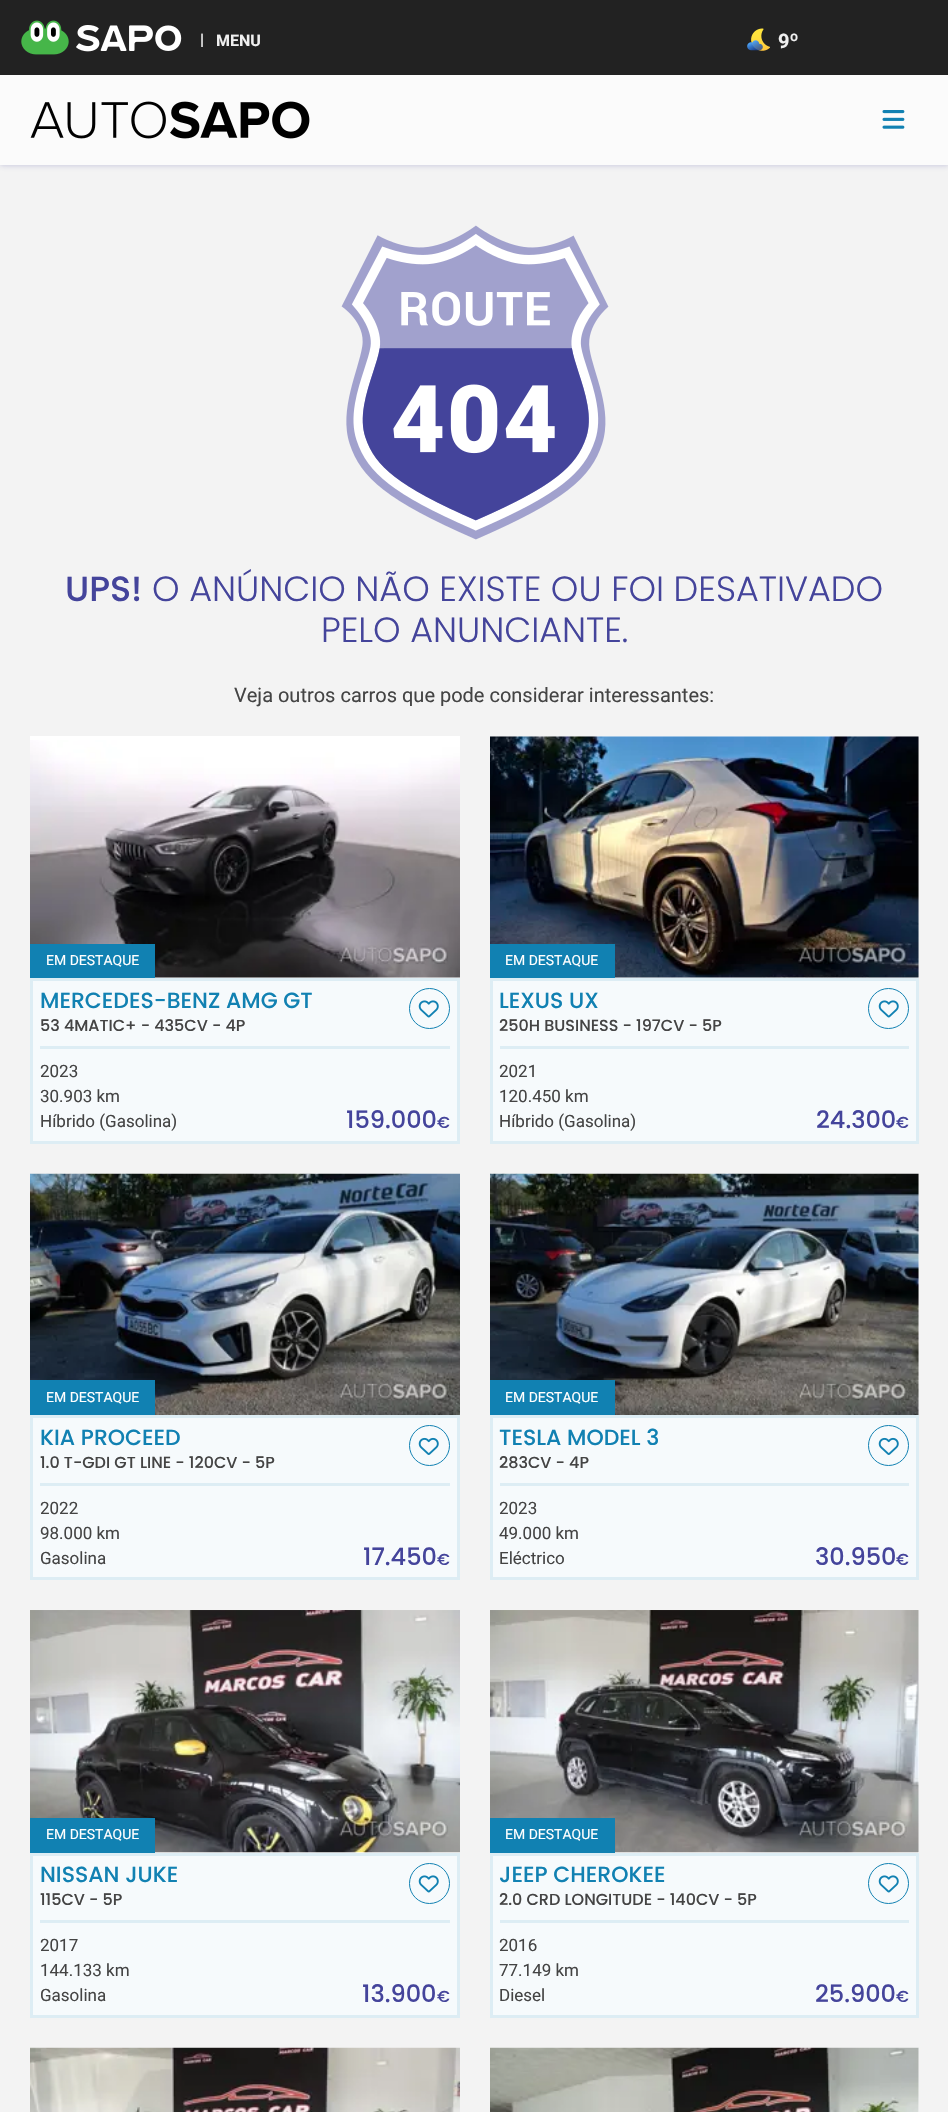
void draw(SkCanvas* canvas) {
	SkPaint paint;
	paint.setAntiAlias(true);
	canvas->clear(0xfff3f3f3);
	paint.setColor(0x4d44449b);
	paint.setMaskFilter(SkMaskFilter::MakeBlur(kNormal_SkBlurStyle, 3));
	canvas->drawRect(SkRect::MakeXYWH(0, 75, 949, 90), paint);
	paint.setMaskFilter(nullptr);
	paint.setColor(0xff222222);
	canvas->drawRect(SkRect::MakeXYWH(0, 0, 948, 75), paint);
	canvas->drawImageRect(SkImages::DeferredFromEncodedData(SkData::MakeFromFileName("img1.png")), SkRect::MakeXYWH(21, 20, 161, 35), SkSamplingOptions());
	SkFont f1(fontMgr->matchFamilyStyle("Roboto", SkFontStyle::Bold()), 16);
	f1.setSubpixel(true);
	paint.setColor(0xfff0f0f0);
	canvas->drawString("|", 200, 45, f1, paint);
	canvas->drawString("MENU", 216, 46, f1, paint);
	canvas->drawImageRect(SkImages::DeferredFromEncodedData(SkData::MakeFromFileName("img2.png")), SkRect::MakeXYWH(747, 28, 23, 23), SkSamplingOptions());
	SkFont f2(fontMgr->matchFamilyStyle("Roboto", SkFontStyle::Bold()), 20);
	f2.setSubpixel(true);
	canvas->drawString("9º", 778, 48, f2, paint);
	paint.setColor(0xfffbfbfb);
	canvas->drawRect(SkRect::MakeXYWH(0, 75, 948, 90), paint);
	canvas->drawImageRect(SkImages::DeferredFromEncodedData(SkData::MakeFromFileName("img3.png")), SkRect::MakeXYWH(30, 101, 280, 38), SkSamplingOptions());
	canvas->drawImageRect(SkImages::DeferredFromEncodedData(SkData::MakeFromFileName("img4.png")), SkRect::MakeXYWH(882, 110, 23, 19), SkSamplingOptions());
	canvas->drawImageRect(SkImages::DeferredFromEncodedData(SkData::MakeFromFileName("img5.png")), SkRect::MakeXYWH(341, 225, 268, 315), SkSamplingOptions());
	SkFont f3(fontMgr->matchFamilyStyle("Poppins", SkFontStyle(500, SkFontStyle::kNormal_Width, SkFontStyle::kUpright_Slant)), 35);
	f3.setSubpixel(true);
	paint.setColor(0xff44449b);
	canvas->drawString("UPS!", 65, 601, f3, paint);
	SkFont f4(fontMgr->matchFamilyStyle("Poppins", SkFontStyle(300, SkFontStyle::kNormal_Width, SkFontStyle::kUpright_Slant)), 35);
	f4.setSubpixel(true);
	canvas->drawString("O ANÚNCIO NÃO EXISTE OU FOI DESATIVADO", 152, 601, f4, paint);
	canvas->drawString("PELO ANUNCIANTE.", 321, 642, f4, paint);
	SkFont f5(fontMgr->matchFamilyStyle("Roboto", SkFontStyle::Normal()), 20);
	f5.setSubpixel(true);
	paint.setColor(0xff444444);
	canvas->drawString("Veja outros carros que pode considerar interessantes:", 234, 702, f5, paint);
	paint.setColor(0xffffffff);
	canvas->drawRect(SkRect::MakeXYWH(30, 736, 430, 242), paint);
	canvas->drawImageRect(SkImages::DeferredFromEncodedData(SkData::MakeFromFileName("img6.png")), SkRect::MakeXYWH(30, 740, 430, 238), SkSamplingOptions());
	paint.setColor(0xff1181b2);
	canvas->drawRect(SkRect::MakeXYWH(30, 944, 125, 34), paint);
	SkFont f6(fontMgr->matchFamilyStyle("Roboto", SkFontStyle::Normal()), 14);
	f6.setSubpixel(true);
	paint.setColor(0xffffffff);
	canvas->drawString("EM DESTAQUE", 46, 965, f6, paint);
	paint.setColor(0xfff6fafc);
	canvas->drawRect(SkRect::MakeXYWH(31.5, 979.5, 427, 163), paint);
	paint.setStroke(true);
	paint.setStrokeWidth(3);
	paint.setColor(0xffddedf4);
	canvas->drawRect(SkRect::MakeXYWH(31.5, 979.5, 427, 163), paint);
	SkFont f7(fontMgr->matchFamilyStyle("Poppins", SkFontStyle(500, SkFontStyle::kNormal_Width, SkFontStyle::kUpright_Slant)), 22);
	f7.setSubpixel(true);
	paint.setStroke(false);
	paint.setColor(0xff1181b2);
	canvas->drawString("MERCEDES-BENZ AMG GT", 40, 1008, f7, paint);
	SkFont f8(fontMgr->matchFamilyStyle("Poppins", SkFontStyle(500, SkFontStyle::kNormal_Width, SkFontStyle::kUpright_Slant)), 16);
	f8.setSubpixel(true);
	paint.setColor(0xff444444);
	canvas->drawString("53 4MATIC+ - 435CV - 4P", 40, 1031, f8, paint);
	paint.setStroke(true);
	paint.setStrokeWidth(1);
	paint.setColor(0xff1181b2);
	canvas->drawCircle(429.5, 1008.5, 20, paint);
	canvas->drawImageRect(SkImages::DeferredFromEncodedData(SkData::MakeFromFileName("img7.png")), SkRect::MakeXYWH(418, 1000, 21, 18), SkSamplingOptions());
	paint.setStroke(false);
	paint.setColor(0xffddedf4);
	canvas->drawRect(SkRect::MakeXYWH(40, 1046, 410, 3), paint);
	SkFont f9(fontMgr->matchFamilyStyle("Roboto", SkFontStyle::Normal()), 17);
	f9.setSubpixel(true);
	paint.setColor(0xff444444);
	canvas->drawString("2023", 40, 1077, f9, paint);
	canvas->drawString("30.903 km", 40, 1102, f9, paint);
	canvas->drawString("Híbrido (Gasolina)", 40, 1127, f9, paint);
	SkFont f10(fontMgr->matchFamilyStyle("Poppins", SkFontStyle(500, SkFontStyle::kNormal_Width, SkFontStyle::kUpright_Slant)), 24);
	f10.setSubpixel(true);
	paint.setColor(0xff44449b);
	canvas->drawString("159.000", 346, 1128, f10, paint);
	canvas->drawString("€", 437, 1128, f8, paint);
	paint.setColor(0xffffffff);
	canvas->drawRect(SkRect::MakeXYWH(490, 736, 429, 242), paint);
	canvas->drawImageRect(SkImages::DeferredFromEncodedData(SkData::MakeFromFileName("img8.png")), SkRect::MakeXYWH(490, 736, 429, 242), SkSamplingOptions());
	paint.setColor(0xff1181b2);
	canvas->drawRect(SkRect::MakeXYWH(490, 944, 125, 34), paint);
	paint.setColor(0xffffffff);
	canvas->drawString("EM DESTAQUE", 505, 965, f6, paint);
	paint.setColor(0xfff6fafc);
	canvas->drawRect(SkRect::MakeXYWH(491.5, 979.5, 426, 163), paint);
	paint.setStroke(true);
	paint.setStrokeWidth(3);
	paint.setColor(0xffddedf4);
	canvas->drawRect(SkRect::MakeXYWH(491.5, 979.5, 426, 163), paint);
	paint.setStroke(false);
	paint.setColor(0xff1181b2);
	canvas->drawString("LEXUS UX", 499, 1008, f7, paint);
	paint.setColor(0xff444444);
	canvas->drawString("250H BUSINESS - 197CV - 5P", 499, 1031, f8, paint);
	paint.setStroke(true);
	paint.setStrokeWidth(1);
	paint.setColor(0xff1181b2);
	canvas->drawCircle(888.5, 1008.5, 20, paint);
	canvas->drawImageRect(SkImages::DeferredFromEncodedData(SkData::MakeFromFileName("img7.png")), SkRect::MakeXYWH(878, 1000, 21, 18), SkSamplingOptions());
	paint.setStroke(false);
	paint.setColor(0xffddedf4);
	canvas->drawRect(SkRect::MakeXYWH(500, 1046, 409, 3), paint);
	paint.setColor(0xff444444);
	canvas->drawString("2021", 499, 1077, f9, paint);
	canvas->drawString("120.450 km", 499, 1102, f9, paint);
	canvas->drawString("Híbrido (Gasolina)", 499, 1127, f9, paint);
	paint.setColor(0xff44449b);
	canvas->drawString("24.300", 816, 1128, f10, paint);
	canvas->drawString("€", 896, 1128, f8, paint);
	canvas->drawImageRect(SkImages::DeferredFromEncodedData(SkData::MakeFromFileName("img9.png")), SkRect::MakeXYWH(30, 1173, 430, 242), SkSamplingOptions());
	paint.setColor(0xff1181b2);
	canvas->drawRect(SkRect::MakeXYWH(30, 1380, 125, 35), paint);
	paint.setColor(0xffffffff);
	canvas->drawString("EM DESTAQUE", 46, 1402, f6, paint);
	paint.setColor(0xfff6fafc);
	canvas->drawRect(SkRect::MakeXYWH(31.5, 1416.5, 427, 162), paint);
	paint.setStroke(true);
	paint.setStrokeWidth(3);
	paint.setColor(0xffddedf4);
	canvas->drawRect(SkRect::MakeXYWH(31.5, 1416.5, 427, 162), paint);
	paint.setStroke(false);
	paint.setColor(0xff1181b2);
	canvas->drawString("KIA PROCEED", 40, 1445, f7, paint);
	paint.setColor(0xff444444);
	canvas->drawString("1.0 T-GDI GT LINE - 120CV - 5P", 40, 1468, f8, paint);
	paint.setStroke(true);
	paint.setStrokeWidth(1);
	paint.setColor(0xff1181b2);
	canvas->drawCircle(429.5, 1445.5, 20, paint);
	canvas->drawImageRect(SkImages::DeferredFromEncodedData(SkData::MakeFromFileName("img10.png")), SkRect::MakeXYWH(418, 1437, 21, 18), SkSamplingOptions());
	paint.setStroke(false);
	paint.setColor(0xffddedf4);
	canvas->drawRect(SkRect::MakeXYWH(40, 1483, 410, 3), paint);
	paint.setColor(0xff444444);
	canvas->drawString("2022", 40, 1514, f9, paint);
	canvas->drawString("98.000 km", 40, 1539, f9, paint);
	canvas->drawString("Gasolina", 40, 1564, f9, paint);
	paint.setColor(0xff44449b);
	canvas->drawString("17.450", 363, 1565, f10, paint);
	canvas->drawString("€", 437, 1565, f8, paint);
	paint.setColor(0xffffffff);
	canvas->drawRect(SkRect::MakeXYWH(918, 1174, 1, 241), paint);
	canvas->drawImageRect(SkImages::DeferredFromEncodedData(SkData::MakeFromFileName("img11.png")), SkRect::MakeXYWH(490, 1173, 429, 242), SkSamplingOptions());
	paint.setColor(0xff1181b2);
	canvas->drawRect(SkRect::MakeXYWH(490, 1380, 125, 35), paint);
	paint.setColor(0xffffffff);
	canvas->drawString("EM DESTAQUE", 505, 1402, f6, paint);
	paint.setColor(0xfff6fafc);
	canvas->drawRect(SkRect::MakeXYWH(491.5, 1416.5, 426, 162), paint);
	paint.setStroke(true);
	paint.setStrokeWidth(3);
	paint.setColor(0xffddedf4);
	canvas->drawRect(SkRect::MakeXYWH(491.5, 1416.5, 426, 162), paint);
	paint.setStroke(false);
	paint.setColor(0xff1181b2);
	canvas->drawString("TESLA MODEL 3", 499, 1445, f7, paint);
	paint.setColor(0xff444444);
	canvas->drawString("283CV - 4P", 499, 1468, f8, paint);
	paint.setStroke(true);
	paint.setStrokeWidth(1);
	paint.setColor(0xff1181b2);
	canvas->drawCircle(888.5, 1445.5, 20, paint);
	canvas->drawImageRect(SkImages::DeferredFromEncodedData(SkData::MakeFromFileName("img10.png")), SkRect::MakeXYWH(878, 1437, 21, 18), SkSamplingOptions());
	paint.setStroke(false);
	paint.setColor(0xffddedf4);
	canvas->drawRect(SkRect::MakeXYWH(500, 1483, 409, 3), paint);
	paint.setColor(0xff444444);
	canvas->drawString("2023", 499, 1514, f9, paint);
	canvas->drawString("49.000 km", 499, 1539, f9, paint);
	canvas->drawString("Eléctrico", 499, 1564, f9, paint);
	paint.setColor(0xff44449b);
	canvas->drawString("30.950", 815, 1565, f10, paint);
	canvas->drawString("€", 896, 1565, f8, paint);
	paint.setColor(0xffffffff);
	canvas->drawRect(SkRect::MakeXYWH(30, 1610, 430, 243), paint);
	canvas->drawImageRect(SkImages::DeferredFromEncodedData(SkData::MakeFromFileName("img12.png")), SkRect::MakeXYWH(30, 1610, 430, 243), SkSamplingOptions());
	paint.setColor(0xff1181b2);
	canvas->drawRect(SkRect::MakeXYWH(30, 1818, 125, 35), paint);
	paint.setColor(0xffffffff);
	canvas->drawString("EM DESTAQUE", 46, 1839, f6, paint);
	paint.setColor(0xfff6fafc);
	canvas->drawRect(SkRect::MakeXYWH(31.5, 1854.5, 427, 162), paint);
	paint.setStroke(true);
	paint.setStrokeWidth(3);
	paint.setColor(0xffddedf4);
	canvas->drawRect(SkRect::MakeXYWH(31.5, 1854.5, 427, 162), paint);
	paint.setStroke(false);
	paint.setColor(0xff1181b2);
	canvas->drawString("NISSAN JUKE", 40, 1882, f7, paint);
	paint.setColor(0xff444444);
	canvas->drawString("115CV - 5P", 40, 1905, f8, paint);
	paint.setStroke(true);
	paint.setStrokeWidth(1);
	paint.setColor(0xff1181b2);
	canvas->drawCircle(429.5, 1883.5, 20, paint);
	canvas->drawImageRect(SkImages::DeferredFromEncodedData(SkData::MakeFromFileName("img7.png")), SkRect::MakeXYWH(418, 1875, 21, 18), SkSamplingOptions());
	paint.setStroke(false);
	paint.setColor(0xffddedf4);
	canvas->drawRect(SkRect::MakeXYWH(40, 1920, 410, 3), paint);
	paint.setColor(0xff444444);
	canvas->drawString("2017", 40, 1951, f9, paint);
	canvas->drawString("144.133 km", 40, 1976, f9, paint);
	canvas->drawString("Gasolina", 40, 2001, f9, paint);
	paint.setColor(0xff44449b);
	canvas->drawString("13.900", 362, 2002, f10, paint);
	canvas->drawString("€", 437, 2002, f8, paint);
	paint.setColor(0xffffffff);
	canvas->drawRect(SkRect::MakeXYWH(490, 1610, 429, 243), paint);
	canvas->drawImageRect(SkImages::DeferredFromEncodedData(SkData::MakeFromFileName("img13.png")), SkRect::MakeXYWH(490, 1610, 429, 243), SkSamplingOptions());
	paint.setColor(0xff1181b2);
	canvas->drawRect(SkRect::MakeXYWH(490, 1818, 125, 35), paint);
	paint.setColor(0xffffffff);
	canvas->drawString("EM DESTAQUE", 505, 1839, f6, paint);
	paint.setColor(0xfff6fafc);
	canvas->drawRect(SkRect::MakeXYWH(491.5, 1854.5, 426, 162), paint);
	paint.setStroke(true);
	paint.setStrokeWidth(3);
	paint.setColor(0xffddedf4);
	canvas->drawRect(SkRect::MakeXYWH(491.5, 1854.5, 426, 162), paint);
	paint.setStroke(false);
	paint.setColor(0xff1181b2);
	canvas->drawString("JEEP CHEROKEE", 499, 1882, f7, paint);
	paint.setColor(0xff444444);
	canvas->drawString("2.0 CRD LONGITUDE - 140CV - 5P", 499, 1905, f8, paint);
	paint.setStroke(true);
	paint.setStrokeWidth(1);
	paint.setColor(0xff1181b2);
	canvas->drawCircle(888.5, 1883.5, 20, paint);
	canvas->drawImageRect(SkImages::DeferredFromEncodedData(SkData::MakeFromFileName("img7.png")), SkRect::MakeXYWH(878, 1875, 21, 18), SkSamplingOptions());
	paint.setStroke(false);
	paint.setColor(0xffddedf4);
	canvas->drawRect(SkRect::MakeXYWH(500, 1920, 409, 3), paint);
	paint.setColor(0xff444444);
	canvas->drawString("2016", 499, 1951, f9, paint);
	canvas->drawString("77.149 km", 499, 1976, f9, paint);
	canvas->drawString("Diesel", 499, 2001, f9, paint);
	paint.setColor(0xff44449b);
	canvas->drawString("25.900", 815, 2002, f10, paint);
	canvas->drawString("€", 896, 2002, f8, paint);
	canvas->drawImageRect(SkImages::DeferredFromEncodedData(SkData::MakeFromFileName("img14.png")), SkRect::MakeXYWH(30, 2047, 430, 65), SkSamplingOptions());
	paint.setColor(0xffffffff);
	canvas->drawRect(SkRect::MakeXYWH(918, 2048, 1, 64), paint);
	canvas->drawImageRect(SkImages::DeferredFromEncodedData(SkData::MakeFromFileName("img15.png")), SkRect::MakeXYWH(490, 2047, 429, 65), SkSamplingOptions());
}
